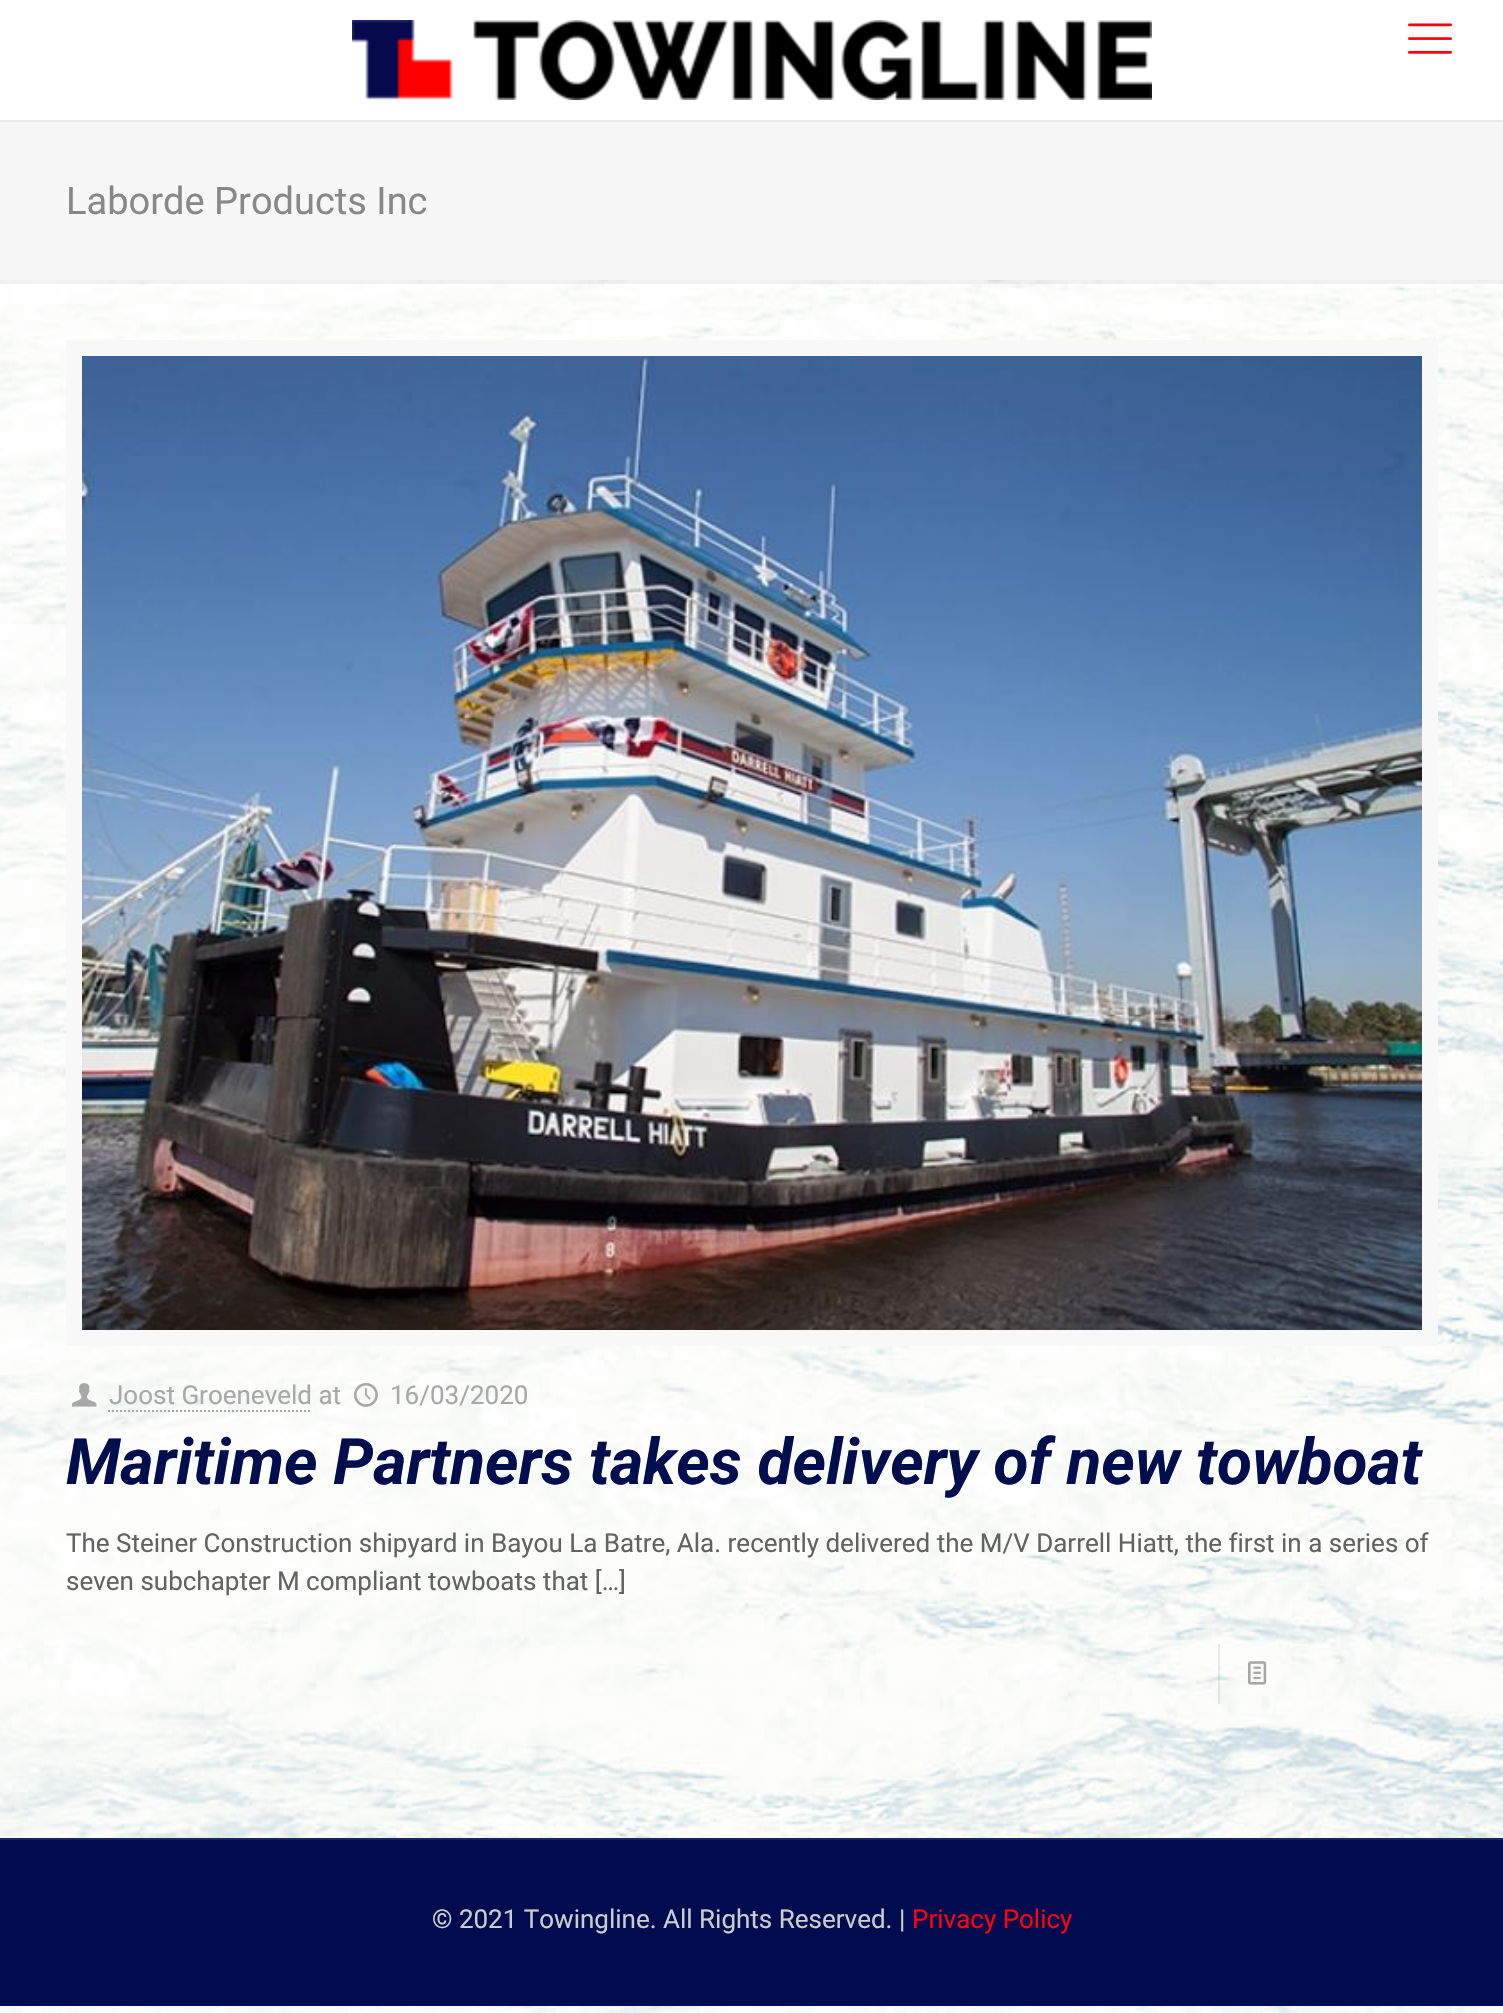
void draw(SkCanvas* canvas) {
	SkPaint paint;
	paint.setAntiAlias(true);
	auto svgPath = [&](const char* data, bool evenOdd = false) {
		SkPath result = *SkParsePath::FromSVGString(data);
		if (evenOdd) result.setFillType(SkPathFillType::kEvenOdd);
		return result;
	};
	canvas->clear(0xffffffff);
	canvas->drawImageRect(SkImages::DeferredFromEncodedData(SkData::MakeFromFileName("img1.png")), SkRect::MakeXYWH(0, 280, 1503, 1733), SkSamplingOptions());
	paint.setColor(0xffebebeb);
	canvas->drawRect(SkRect::MakeXYWH(0, 120, 1503, 2), paint);
	canvas->drawImageRect(SkImages::DeferredFromEncodedData(SkData::MakeFromFileName("img2.png")), SkRect::MakeXYWH(352, 20, 800, 80), SkSamplingOptions());
	canvas->drawImageRect(SkImages::DeferredFromEncodedData(SkData::MakeFromFileName("img3.png")), SkRect::MakeXYWH(1408, 23, 44, 31), SkSamplingOptions());
	paint.setColor(0xfff7f7f7);
	canvas->drawRect(SkRect::MakeXYWH(0, 122, 1503, 158), paint);
	SkFont f1(fontMgr->matchFamilyStyle("Roboto", SkFontStyle::Normal()), 38);
	f1.setSubpixel(true);
	paint.setColor(0xff888888);
	canvas->drawString("Laborde Products Inc", 66, 214, f1, paint);
	paint.setColor(0x0d000000);
	canvas->drawRect(SkRect::MakeXYWH(0, 280, 1503, 4), paint);
	paint.setStroke(true);
	paint.setStrokeWidth(16);
	paint.setColor(0xfff8f8f8);
	canvas->drawRect(SkRect::MakeXYWH(74, 348, 1356, 990), paint);
	canvas->drawImageRect(SkImages::DeferredFromEncodedData(SkData::MakeFromFileName("img4.png")), SkRect::MakeXYWH(82, 356, 1340, 974), SkSamplingOptions());
	canvas->drawImageRect(SkImages::DeferredFromEncodedData(SkData::MakeFromFileName("img5.png")), SkRect::MakeXYWH(72, 1383, 25, 24), SkSamplingOptions());
	SkFont f2(fontMgr->matchFamilyStyle("Roboto", SkFontStyle::Normal()), 26);
	f2.setSubpixel(true);
	paint.setStroke(false);
	paint.setColor(0xffa8a8a8);
	canvas->drawString("Joost Groeneveld at", 109, 1404, f2, paint);
	paint.setStroke(true);
	paint.setStrokeWidth(2);
	paint.setPathEffect(SkDashPathEffect::Make({{2, 2}}, 0));
	canvas->drawPath(svgPath("M108 1411H312"), paint);
	paint.setPathEffect(nullptr);
	canvas->drawImageRect(SkImages::DeferredFromEncodedData(SkData::MakeFromFileName("img6.png")), SkRect::MakeXYWH(354, 1383, 24, 24), SkSamplingOptions());
	paint.setStroke(false);
	canvas->drawString("16/03/2020", 390, 1404, f2, paint);
	SkFont f3(fontMgr->matchFamilyStyle("Roboto", SkFontStyle::BoldItalic()), 64);
	f3.setSubpixel(true);
	paint.setColor(0xff010e4e);
	canvas->drawString("Maritime Partners takes delivery of new towboat", 66, 1484, f3, paint);
	paint.setColor(0xff626262);
	canvas->drawString("The Steiner Construction shipyard in Bayou La Batre, Ala. recently delivered the M/V Darrell Hiatt, the first in a series of", 66, 1552, f2, paint);
	canvas->drawString("seven subchapter M compliant towboats that […]", 66, 1590, f2, paint);
	paint.setColor(0x14000000);
	canvas->drawRect(SkRect::MakeXYWH(1218, 1644, 2, 60), paint);
	canvas->drawImageRect(SkImages::DeferredFromEncodedData(SkData::MakeFromFileName("img7.png")), SkRect::MakeXYWH(1248, 1661, 19, 24), SkSamplingOptions());
	paint.setColor(0xff000b50);
	canvas->drawRect(SkRect::MakeXYWH(0, 1840, 1503, 166), paint);
	paint.setColor(0xff1a2362);
	canvas->drawRect(SkRect::MakeXYWH(0, 1838, 1503, 2), paint);
	paint.setColor(0xffcccccc);
	canvas->drawString("© 2021 Towingline. All Rights Reserved. |", 432, 1928, f2, paint);
	paint.setColor(0xffff000c);
	canvas->drawString("Privacy Policy", 912, 1928, f2, paint);
}
